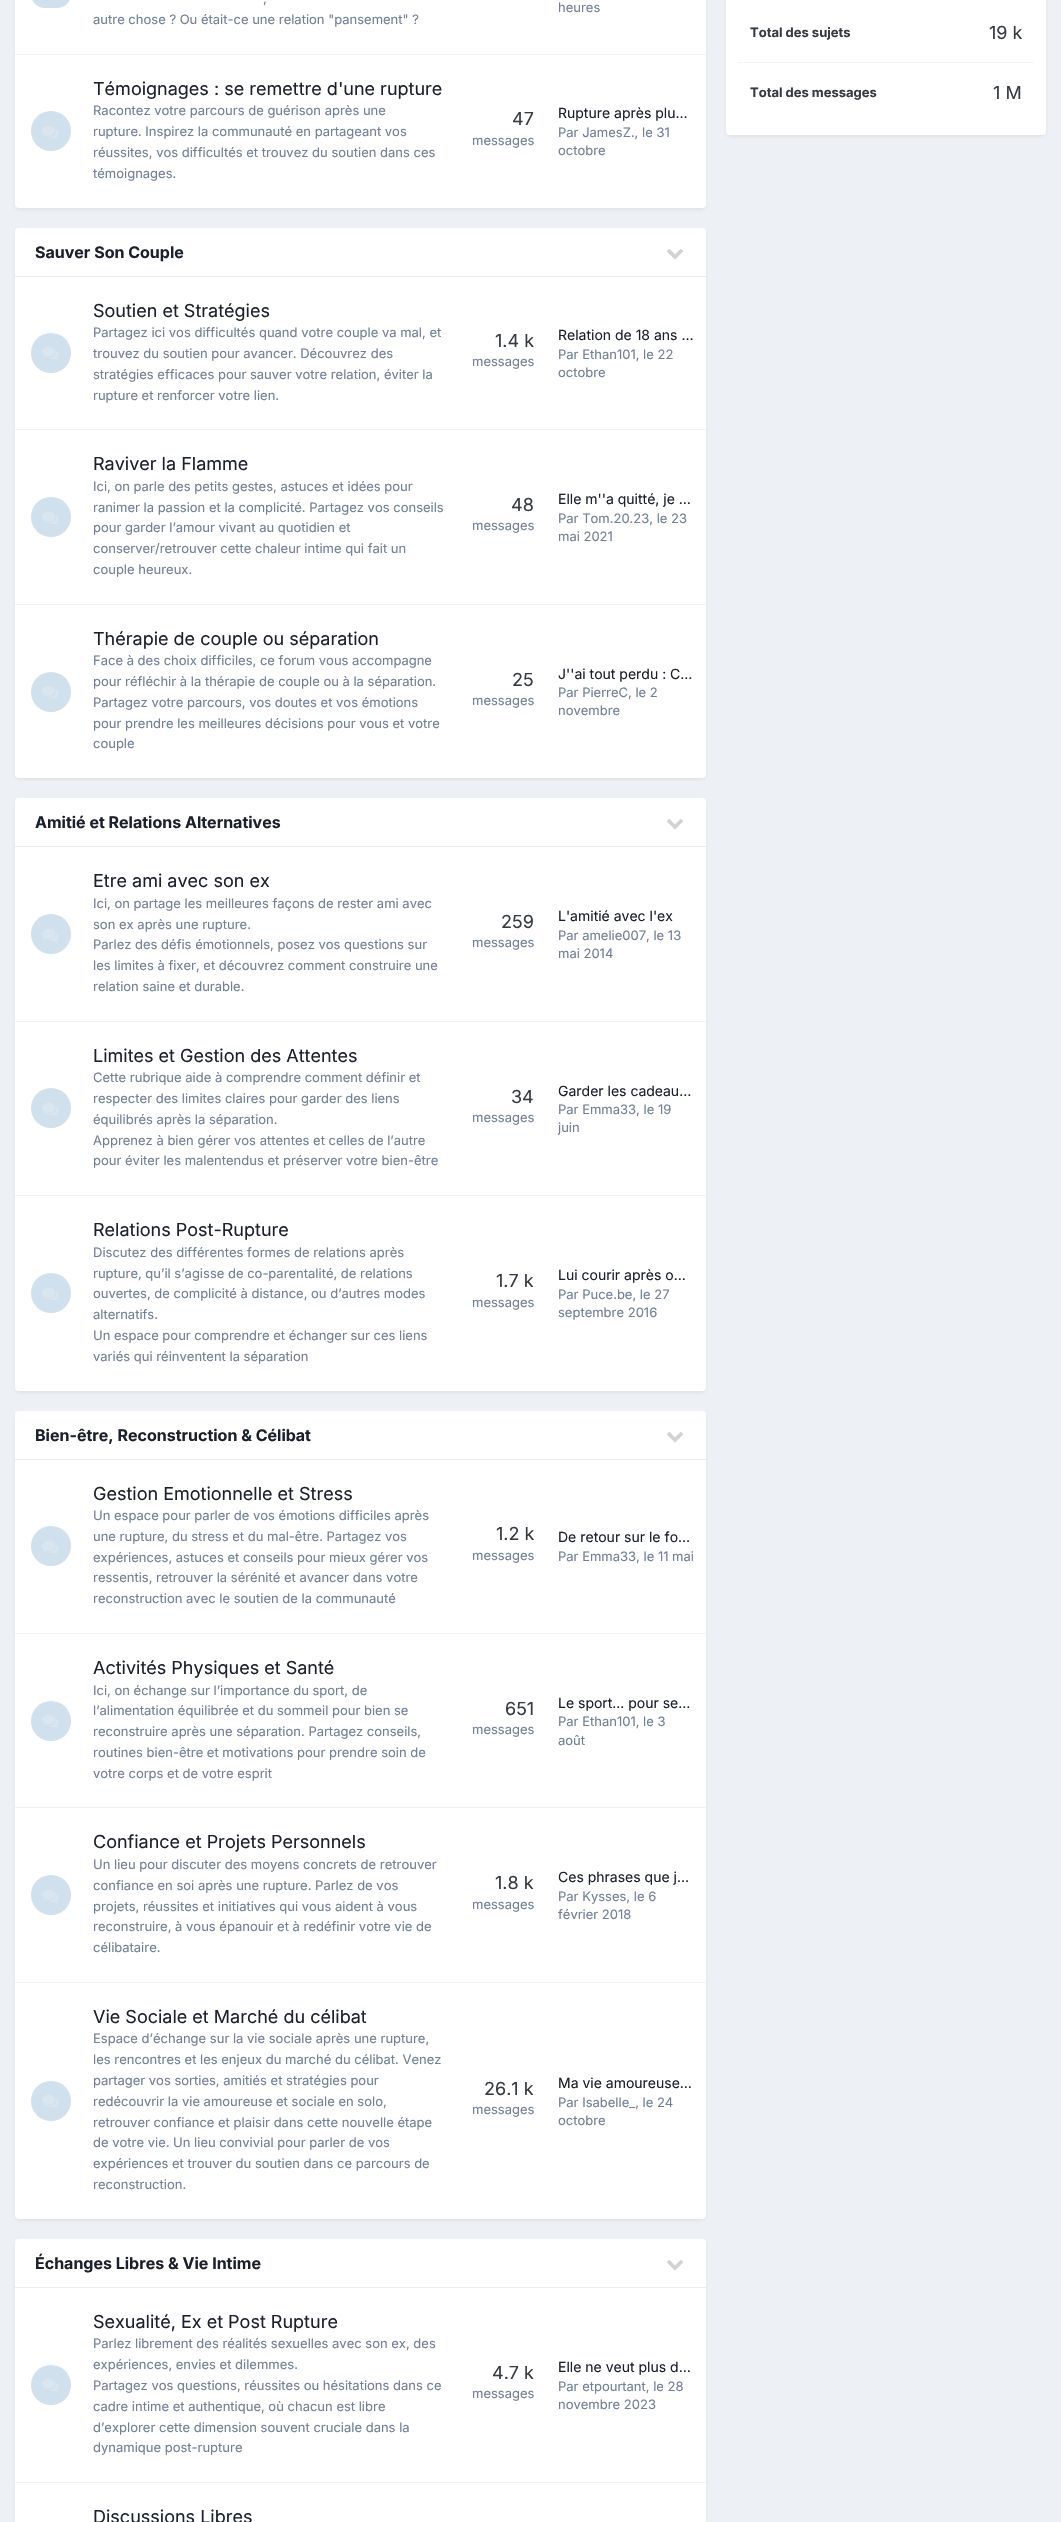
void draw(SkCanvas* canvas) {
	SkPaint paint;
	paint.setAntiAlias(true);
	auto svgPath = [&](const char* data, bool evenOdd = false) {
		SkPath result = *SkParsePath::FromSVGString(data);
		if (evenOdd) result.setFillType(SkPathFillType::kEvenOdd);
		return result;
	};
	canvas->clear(0xffedf0f4);
	paint.setColor(0x1a2d3748);
	paint.setMaskFilter(SkMaskFilter::MakeBlur(kNormal_SkBlurStyle, 2));
	canvas->drawRoundRect(SkRect::MakeXYWH(16, -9, 689, 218), 3, 3, paint);
	paint.setMaskFilter(nullptr);
	paint.setColor(0xffffffff);
	canvas->drawRoundRect(SkRect::MakeXYWH(15, -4, 691, 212), 4, 4, paint);
	paint.setColor(0xfff1f2f5);
	canvas->drawRect(SkRect::MakeXYWH(15, 54, 691, 1), paint);
	paint.setColor(0xffd0e0ec);
	canvas->drawRoundRect(SkRect::MakeXYWH(31, -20, 40, 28), 20, 20, paint);
	SkFont f1(fontMgr->matchFamilyStyle("Inter", SkFontStyle::Normal()), 13);
	f1.setSubpixel(true);
	paint.setColor(0xff718096);
	canvas->drawString(",", 263, 3, f1, paint);
	canvas->drawString("autre chose ? Ou était-ce une relation \"pansement\" ?", 93, 24, f1, paint);
	canvas->drawString("heures", 558, 12, f1, paint);
	paint.setColor(0xffd0e0ec);
	canvas->drawCircle(51, 131, 20, paint);
	canvas->drawImageRect(SkImages::DeferredFromEncodedData(SkData::MakeFromFileName("img1.png")), SkRect::MakeXYWH(42, 126, 17, 13), SkSamplingOptions());
	SkFont f2(fontMgr->matchFamilyStyle("Inter", SkFontStyle::Normal()), 18);
	f2.setSubpixel(true);
	paint.setColor(0xff1a202c);
	canvas->drawString("Témoignages : se remettre d'une rupture", 93, 95, f2, paint);
	paint.setColor(0xff718096);
	canvas->drawString("Racontez votre parcours de guérison après une", 93, 115, f1, paint);
	canvas->drawString("rupture. Inspirez la communauté en partageant vos", 93, 136, f1, paint);
	canvas->drawString("réussites, vos difficultés et trouvez du soutien dans ces", 93, 157, f1, paint);
	canvas->drawString("témoignages.", 93, 178, f1, paint);
	paint.setColor(0xff353c41);
	canvas->drawString("47", 512, 125, f2, paint);
	paint.setColor(0xff718096);
	canvas->drawString("messages", 472, 145, f1, paint);
	SkFont f3(fontMgr->matchFamilyStyle("Inter", SkFontStyle::Normal()), 14);
	f3.setSubpixel(true);
	paint.setColor(0xff1a202c);
	canvas->drawString("Rupture après plu…", 558, 118, f3, paint);
	paint.setColor(0xff718096);
	canvas->drawString("Par JamesZ., le 31", 558, 137, f1, paint);
	canvas->drawString("octobre", 558, 155, f1, paint);
	paint.setColor(0x1a2d3748);
	paint.setMaskFilter(SkMaskFilter::MakeBlur(kNormal_SkBlurStyle, 2));
	canvas->drawRoundRect(SkRect::MakeXYWH(16, 231, 689, 548), 3, 3, paint);
	paint.setMaskFilter(nullptr);
	paint.setColor(0xffffffff);
	canvas->drawRoundRect(SkRect::MakeXYWH(15, 228, 691, 550), 4, 4, paint);
	canvas->drawPath(svgPath("M19 228H702C704 228 706 230 706 232V277H15V232C15 230 17 228 19 228Z"), paint);
	paint.setColor(0xffeaecef);
	canvas->drawRect(SkRect::MakeXYWH(15, 276, 691, 1), paint);
	SkFont f4(fontMgr->matchFamilyStyle("Inter", SkFontStyle::Bold()), 16);
	f4.setSubpixel(true);
	paint.setColor(0xff1a202c);
	canvas->drawString("Sauver Son Couple", 35, 258, f4, paint);
	canvas->drawImageRect(SkImages::DeferredFromEncodedData(SkData::MakeFromFileName("img2.png")), SkRect::MakeXYWH(667, 249, 16, 11), SkSamplingOptions());
	paint.setColor(0xfff1f2f5);
	canvas->drawRect(SkRect::MakeXYWH(15, 429, 691, 1), paint);
	paint.setColor(0xffd0e0ec);
	canvas->drawCircle(51, 353, 20, paint);
	canvas->drawImageRect(SkImages::DeferredFromEncodedData(SkData::MakeFromFileName("img1.png")), SkRect::MakeXYWH(42, 347, 17, 13), SkSamplingOptions());
	paint.setColor(0xff1a202c);
	canvas->drawString("Soutien et Stratégies", 93, 317, f2, paint);
	paint.setColor(0xff718096);
	canvas->drawString("Partagez ici vos difficultés quand votre couple va mal, et", 93, 337, f1, paint);
	canvas->drawString("trouvez du soutien pour avancer. Découvrez des", 93, 358, f1, paint);
	canvas->drawString("stratégies efficaces pour sauver votre relation, éviter la", 93, 379, f1, paint);
	canvas->drawString("rupture et renforcer votre lien.", 93, 400, f1, paint);
	paint.setColor(0xff353c41);
	canvas->drawString("1.4 k", 495, 347, f2, paint);
	paint.setColor(0xff718096);
	canvas->drawString("messages", 472, 366, f1, paint);
	paint.setColor(0xff1a202c);
	canvas->drawString("Relation de 18 ans …", 558, 340, f3, paint);
	paint.setColor(0xff718096);
	canvas->drawString("Par Ethan101, le 22", 558, 359, f1, paint);
	canvas->drawString("octobre", 558, 377, f1, paint);
	paint.setColor(0xfff1f2f5);
	canvas->drawRect(SkRect::MakeXYWH(15, 604, 691, 1), paint);
	paint.setColor(0xffd0e0ec);
	canvas->drawCircle(51, 517, 20, paint);
	canvas->drawImageRect(SkImages::DeferredFromEncodedData(SkData::MakeFromFileName("img1.png")), SkRect::MakeXYWH(42, 512, 17, 13), SkSamplingOptions());
	paint.setColor(0xff1a202c);
	canvas->drawString("Raviver la Flamme", 93, 470, f2, paint);
	paint.setColor(0xff718096);
	canvas->drawString("Ici, on parle des petits gestes, astuces et idées pour", 93, 491, f1, paint);
	canvas->drawString("ranimer la passion et la complicité. Partagez vos conseils", 93, 512, f1, paint);
	canvas->drawString("pour garder l’amour vivant au quotidien et", 93, 532, f1, paint);
	canvas->drawString("conserver/retrouver cette chaleur intime qui fait un", 93, 553, f1, paint);
	canvas->drawString("couple heureux.", 93, 574, f1, paint);
	paint.setColor(0xff353c41);
	canvas->drawString("48", 511, 511, f2, paint);
	paint.setColor(0xff718096);
	canvas->drawString("messages", 472, 530, f1, paint);
	paint.setColor(0xff1a202c);
	canvas->drawString("Elle m''a quitté, je …", 558, 504, f3, paint);
	paint.setColor(0xff718096);
	canvas->drawString("Par Tom.20.23, le 23", 558, 523, f1, paint);
	canvas->drawString("mai 2021", 558, 541, f1, paint);
	paint.setColor(0xffd0e0ec);
	canvas->drawCircle(51, 692, 20, paint);
	canvas->drawImageRect(SkImages::DeferredFromEncodedData(SkData::MakeFromFileName("img1.png")), SkRect::MakeXYWH(42, 686, 17, 13), SkSamplingOptions());
	paint.setColor(0xff1a202c);
	canvas->drawString("Thérapie de couple ou séparation", 93, 645, f2, paint);
	paint.setColor(0xff718096);
	canvas->drawString("Face à des choix difficiles, ce forum vous accompagne", 93, 665, f1, paint);
	canvas->drawString("pour réfléchir à la thérapie de couple ou à la séparation.", 93, 686, f1, paint);
	canvas->drawString("Partagez votre parcours, vos doutes et vos émotions", 93, 707, f1, paint);
	canvas->drawString("pour prendre les meilleures décisions pour vous et votre", 93, 728, f1, paint);
	canvas->drawString("couple", 93, 748, f1, paint);
	paint.setColor(0xff353c41);
	canvas->drawString("25", 512, 686, f2, paint);
	paint.setColor(0xff718096);
	canvas->drawString("messages", 472, 705, f1, paint);
	paint.setColor(0xff1a202c);
	canvas->drawString("J''ai tout perdu : C…", 558, 679, f3, paint);
	paint.setColor(0xff718096);
	canvas->drawString("Par PierreC, le 2", 558, 697, f1, paint);
	canvas->drawString("novembre", 558, 715, f1, paint);
	paint.setColor(0x1a2d3748);
	paint.setMaskFilter(SkMaskFilter::MakeBlur(kNormal_SkBlurStyle, 2));
	canvas->drawRoundRect(SkRect::MakeXYWH(16, 801, 689, 591), 3, 3, paint);
	paint.setMaskFilter(nullptr);
	paint.setColor(0xffffffff);
	canvas->drawRoundRect(SkRect::MakeXYWH(15, 798, 691, 593), 4, 4, paint);
	canvas->drawPath(svgPath("M19 798H702C704 798 706 800 706 802V847H15V802C15 800 17 798 19 798Z"), paint);
	paint.setColor(0xffeaecef);
	canvas->drawRect(SkRect::MakeXYWH(15, 846, 691, 1), paint);
	paint.setColor(0xff1a202c);
	canvas->drawString("Amitié et Relations Alternatives", 35, 828, f4, paint);
	canvas->drawImageRect(SkImages::DeferredFromEncodedData(SkData::MakeFromFileName("img2.png")), SkRect::MakeXYWH(667, 819, 16, 11), SkSamplingOptions());
	paint.setColor(0xfff1f2f5);
	canvas->drawRect(SkRect::MakeXYWH(15, 1021, 691, 1), paint);
	paint.setColor(0xffd0e0ec);
	canvas->drawCircle(51, 934, 20, paint);
	canvas->drawImageRect(SkImages::DeferredFromEncodedData(SkData::MakeFromFileName("img1.png")), SkRect::MakeXYWH(42, 929, 17, 13), SkSamplingOptions());
	paint.setColor(0xff1a202c);
	canvas->drawString("Etre ami avec son ex", 93, 887, f2, paint);
	paint.setColor(0xff718096);
	canvas->drawString("Ici, on partage les meilleures façons de rester ami avec", 93, 908, f1, paint);
	canvas->drawString("son ex après une rupture.", 93, 929, f1, paint);
	canvas->drawString("Parlez des défis émotionnels, posez vos questions sur", 93, 949, f1, paint);
	canvas->drawString("les limites à fixer, et découvrez comment construire une", 93, 970, f1, paint);
	canvas->drawString("relation saine et durable.", 93, 991, f1, paint);
	paint.setColor(0xff353c41);
	canvas->drawString("259", 501, 928, f2, paint);
	paint.setColor(0xff718096);
	canvas->drawString("messages", 472, 947, f1, paint);
	paint.setColor(0xff1a202c);
	canvas->drawString("L'amitié avec l'ex", 558, 921, f3, paint);
	paint.setColor(0xff718096);
	canvas->drawString("Par amelie007, le 13", 558, 940, f1, paint);
	canvas->drawString("mai 2014", 558, 958, f1, paint);
	paint.setColor(0xfff1f2f5);
	canvas->drawRect(SkRect::MakeXYWH(15, 1195, 691, 1), paint);
	paint.setColor(0xffd0e0ec);
	canvas->drawCircle(51, 1108, 20, paint);
	canvas->drawImageRect(SkImages::DeferredFromEncodedData(SkData::MakeFromFileName("img1.png")), SkRect::MakeXYWH(42, 1103, 17, 13), SkSamplingOptions());
	paint.setColor(0xff1a202c);
	canvas->drawString("Limites et Gestion des Attentes", 93, 1062, f2, paint);
	paint.setColor(0xff718096);
	canvas->drawString("Cette rubrique aide à comprendre comment définir et", 93, 1082, f1, paint);
	canvas->drawString("respecter des limites claires pour garder des liens", 93, 1103, f1, paint);
	canvas->drawString("équilibrés après la séparation.", 93, 1124, f1, paint);
	canvas->drawString("Apprenez à bien gérer vos attentes et celles de l’autre", 93, 1145, f1, paint);
	canvas->drawString("pour éviter les malentendus et préserver votre bien-être", 93, 1165, f1, paint);
	paint.setColor(0xff353c41);
	canvas->drawString("34", 511, 1103, f2, paint);
	paint.setColor(0xff718096);
	canvas->drawString("messages", 472, 1122, f1, paint);
	paint.setColor(0xff1a202c);
	canvas->drawString("Garder les cadeau…", 558, 1096, f3, paint);
	paint.setColor(0xff718096);
	canvas->drawString("Par Emma33, le 19", 558, 1114, f1, paint);
	canvas->drawString("juin", 558, 1132, f1, paint);
	paint.setColor(0xffd0e0ec);
	canvas->drawCircle(51, 1293, 20, paint);
	canvas->drawImageRect(SkImages::DeferredFromEncodedData(SkData::MakeFromFileName("img1.png")), SkRect::MakeXYWH(42, 1288, 17, 13), SkSamplingOptions());
	paint.setColor(0xff1a202c);
	canvas->drawString("Relations Post-Rupture", 93, 1236, f2, paint);
	paint.setColor(0xff718096);
	canvas->drawString("Discutez des différentes formes de relations après", 93, 1257, f1, paint);
	canvas->drawString("rupture, qu’il s’agisse de co-parentalité, de relations", 93, 1278, f1, paint);
	canvas->drawString("ouvertes, de complicité à distance, ou d’autres modes", 93, 1298, f1, paint);
	canvas->drawString("alternatifs.", 93, 1319, f1, paint);
	canvas->drawString("Un espace pour comprendre et échanger sur ces liens", 93, 1340, f1, paint);
	canvas->drawString("variés qui réinventent la séparation", 93, 1361, f1, paint);
	paint.setColor(0xff353c41);
	canvas->drawString("1.7 k", 496, 1287, f2, paint);
	paint.setColor(0xff718096);
	canvas->drawString("messages", 472, 1307, f1, paint);
	paint.setColor(0xff1a202c);
	canvas->drawString("Lui courir après o…", 558, 1280, f3, paint);
	paint.setColor(0xff718096);
	canvas->drawString("Par Puce.be, le 27", 558, 1299, f1, paint);
	canvas->drawString("septembre 2016", 558, 1317, f1, paint);
	paint.setColor(0x1a2d3748);
	paint.setMaskFilter(SkMaskFilter::MakeBlur(kNormal_SkBlurStyle, 2));
	canvas->drawRoundRect(SkRect::MakeXYWH(16, 1414, 689, 806), 3, 3, paint);
	paint.setMaskFilter(nullptr);
	paint.setColor(0xffffffff);
	canvas->drawRoundRect(SkRect::MakeXYWH(15, 1411, 691, 808), 4, 4, paint);
	canvas->drawPath(svgPath("M19 1411H702C704 1411 706 1413 706 1415V1460H15V1415C15 1413 17 1411 19 1411Z"), paint);
	paint.setColor(0xffeaecef);
	canvas->drawRect(SkRect::MakeXYWH(15, 1459, 691, 1), paint);
	paint.setColor(0xff1a202c);
	canvas->drawString("Bien-être, Reconstruction & Célibat", 35, 1441, f4, paint);
	canvas->drawImageRect(SkImages::DeferredFromEncodedData(SkData::MakeFromFileName("img2.png")), SkRect::MakeXYWH(667, 1432, 16, 11), SkSamplingOptions());
	paint.setColor(0xfff1f2f5);
	canvas->drawRect(SkRect::MakeXYWH(15, 1633, 691, 1), paint);
	paint.setColor(0xffd0e0ec);
	canvas->drawCircle(51, 1546, 20, paint);
	canvas->drawImageRect(SkImages::DeferredFromEncodedData(SkData::MakeFromFileName("img1.png")), SkRect::MakeXYWH(42, 1541, 17, 13), SkSamplingOptions());
	paint.setColor(0xff1a202c);
	canvas->drawString("Gestion Emotionnelle et Stress", 93, 1500, f2, paint);
	paint.setColor(0xff718096);
	canvas->drawString("Un espace pour parler de vos émotions difficiles après", 93, 1520, f1, paint);
	canvas->drawString("une rupture, du stress et du mal-être. Partagez vos", 93, 1541, f1, paint);
	canvas->drawString("expériences, astuces et conseils pour mieux gérer vos", 93, 1562, f1, paint);
	canvas->drawString("ressentis, retrouver la sérénité et avancer dans votre", 93, 1582, f1, paint);
	canvas->drawString("reconstruction avec le soutien de la communauté", 93, 1603, f1, paint);
	paint.setColor(0xff353c41);
	canvas->drawString("1.2 k", 496, 1540, f2, paint);
	paint.setColor(0xff718096);
	canvas->drawString("messages", 472, 1560, f1, paint);
	paint.setColor(0xff1a202c);
	canvas->drawString("De retour sur le fo…", 558, 1542, f3, paint);
	paint.setColor(0xff718096);
	canvas->drawString("Par Emma33, le 11 mai", 558, 1561, f1, paint);
	paint.setColor(0xfff1f2f5);
	canvas->drawRect(SkRect::MakeXYWH(15, 1807, 691, 1), paint);
	paint.setColor(0xffd0e0ec);
	canvas->drawCircle(51, 1721, 20, paint);
	canvas->drawImageRect(SkImages::DeferredFromEncodedData(SkData::MakeFromFileName("img1.png")), SkRect::MakeXYWH(42, 1715, 17, 13), SkSamplingOptions());
	paint.setColor(0xff1a202c);
	canvas->drawString("Activités Physiques et Santé", 93, 1674, f2, paint);
	paint.setColor(0xff718096);
	canvas->drawString("Ici, on échange sur l’importance du sport, de", 93, 1695, f1, paint);
	canvas->drawString("l’alimentation équilibrée et du sommeil pour bien se", 93, 1715, f1, paint);
	canvas->drawString("reconstruire après une séparation. Partagez conseils,", 93, 1736, f1, paint);
	canvas->drawString("routines bien-être et motivations pour prendre soin de", 93, 1757, f1, paint);
	canvas->drawString("votre corps et de votre esprit", 93, 1778, f1, paint);
	paint.setColor(0xff353c41);
	canvas->drawString("651", 505, 1715, f2, paint);
	paint.setColor(0xff718096);
	canvas->drawString("messages", 472, 1734, f1, paint);
	paint.setColor(0xff1a202c);
	canvas->drawString("Le sport... pour se…", 558, 1708, f3, paint);
	paint.setColor(0xff718096);
	canvas->drawString("Par Ethan101, le 3", 558, 1726, f1, paint);
	canvas->drawString("août", 558, 1745, f1, paint);
	paint.setColor(0xfff1f2f5);
	canvas->drawRect(SkRect::MakeXYWH(15, 1982, 691, 1), paint);
	paint.setColor(0xffd0e0ec);
	canvas->drawCircle(51, 1895, 20, paint);
	canvas->drawImageRect(SkImages::DeferredFromEncodedData(SkData::MakeFromFileName("img1.png")), SkRect::MakeXYWH(42, 1890, 17, 13), SkSamplingOptions());
	paint.setColor(0xff1a202c);
	canvas->drawString("Confiance et Projets Personnels", 93, 1848, f2, paint);
	paint.setColor(0xff718096);
	canvas->drawString("Un lieu pour discuter des moyens concrets de retrouver", 93, 1869, f1, paint);
	canvas->drawString("confiance en soi après une rupture. Parlez de vos", 93, 1890, f1, paint);
	canvas->drawString("projets, réussites et initiatives qui vous aident à vous", 93, 1911, f1, paint);
	canvas->drawString("reconstruire, à vous épanouir et à redéfinir votre vie de", 93, 1931, f1, paint);
	canvas->drawString("célibataire.", 93, 1952, f1, paint);
	paint.setColor(0xff353c41);
	canvas->drawString("1.8 k", 495, 1889, f2, paint);
	paint.setColor(0xff718096);
	canvas->drawString("messages", 472, 1909, f1, paint);
	paint.setColor(0xff1a202c);
	canvas->drawString("Ces phrases que j…", 558, 1882, f3, paint);
	paint.setColor(0xff718096);
	canvas->drawString("Par Kysses, le 6", 558, 1901, f1, paint);
	canvas->drawString("février 2018", 558, 1919, f1, paint);
	paint.setColor(0xffd0e0ec);
	canvas->drawCircle(51, 2101, 20, paint);
	canvas->drawImageRect(SkImages::DeferredFromEncodedData(SkData::MakeFromFileName("img1.png")), SkRect::MakeXYWH(42, 2095, 17, 13), SkSamplingOptions());
	paint.setColor(0xff1a202c);
	canvas->drawString("Vie Sociale et Marché du célibat", 93, 2023, f2, paint);
	paint.setColor(0xff718096);
	canvas->drawString("Espace d’échange sur la vie sociale après une rupture,", 93, 2043, f1, paint);
	canvas->drawString("les rencontres et les enjeux du marché du célibat. Venez", 93, 2064, f1, paint);
	canvas->drawString("partager vos sorties, amitiés et stratégies pour", 93, 2085, f1, paint);
	canvas->drawString("redécouvrir la vie amoureuse et sociale en solo,", 93, 2106, f1, paint);
	canvas->drawString("retrouver confiance et plaisir dans cette nouvelle étape", 93, 2127, f1, paint);
	canvas->drawString("de votre vie. Un lieu convivial pour parler de vos", 93, 2147, f1, paint);
	canvas->drawString("expériences et trouver du soutien dans ce parcours de", 93, 2168, f1, paint);
	canvas->drawString("reconstruction.", 93, 2189, f1, paint);
	paint.setColor(0xff353c41);
	canvas->drawString("26.1 k", 484, 2095, f2, paint);
	paint.setColor(0xff718096);
	canvas->drawString("messages", 472, 2114, f1, paint);
	paint.setColor(0xff1a202c);
	canvas->drawString("Ma vie amoureuse…", 558, 2088, f3, paint);
	paint.setColor(0xff718096);
	canvas->drawString("Par Isabelle_, le 24", 558, 2107, f1, paint);
	canvas->drawString("octobre", 558, 2125, f1, paint);
	paint.setColor(0x1a2d3748);
	paint.setMaskFilter(SkMaskFilter::MakeBlur(kNormal_SkBlurStyle, 2));
	canvas->drawRoundRect(SkRect::MakeXYWH(16, 2242, 689, 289), 3, 3, paint);
	paint.setMaskFilter(nullptr);
	paint.setColor(0xffffffff);
	canvas->drawRoundRect(SkRect::MakeXYWH(15, 2239, 691, 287), 4, 4, paint);
	canvas->drawPath(svgPath("M19 2239H702C704 2239 706 2241 706 2243V2288H15V2243C15 2241 17 2239 19 2239Z"), paint);
	paint.setColor(0xffeaecef);
	canvas->drawRect(SkRect::MakeXYWH(15, 2287, 691, 1), paint);
	paint.setColor(0xff1a202c);
	canvas->drawString("Échanges Libres & Vie Intime", 35, 2269, f4, paint);
	canvas->drawImageRect(SkImages::DeferredFromEncodedData(SkData::MakeFromFileName("img2.png")), SkRect::MakeXYWH(667, 2260, 16, 11), SkSamplingOptions());
	paint.setColor(0xfff1f2f5);
	canvas->drawRect(SkRect::MakeXYWH(15, 2482, 691, 1), paint);
	paint.setColor(0xffd0e0ec);
	canvas->drawCircle(51, 2385, 20, paint);
	canvas->drawImageRect(SkImages::DeferredFromEncodedData(SkData::MakeFromFileName("img1.png")), SkRect::MakeXYWH(42, 2379, 17, 13), SkSamplingOptions());
	paint.setColor(0xff1a202c);
	canvas->drawString("Sexualité, Ex et Post Rupture", 93, 2328, f2, paint);
	paint.setColor(0xff718096);
	canvas->drawString("Parlez librement des réalités sexuelles avec son ex, des", 93, 2348, f1, paint);
	canvas->drawString("expériences, envies et dilemmes.", 93, 2369, f1, paint);
	canvas->drawString("Partagez vos questions, réussites ou hésitations dans ce", 93, 2390, f1, paint);
	canvas->drawString("cadre intime et authentique, où chacun est libre", 93, 2411, f1, paint);
	canvas->drawString("d’explorer cette dimension souvent cruciale dans la", 93, 2432, f1, paint);
	canvas->drawString("dynamique post-rupture", 93, 2452, f1, paint);
	paint.setColor(0xff353c41);
	canvas->drawString("4.7 k", 492, 2379, f2, paint);
	paint.setColor(0xff718096);
	canvas->drawString("messages", 472, 2398, f1, paint);
	paint.setColor(0xff1a202c);
	canvas->drawString("Elle ne veut plus d…", 558, 2372, f3, paint);
	paint.setColor(0xff718096);
	canvas->drawString("Par etpourtant, le 28", 558, 2391, f1, paint);
	canvas->drawString("novembre 2023", 558, 2409, f1, paint);
	paint.setColor(0xff1a202c);
	canvas->drawString("Discussions Libres", 93, 2523, f2, paint);
	paint.setColor(0x1a2d3748);
	paint.setMaskFilter(SkMaskFilter::MakeBlur(kNormal_SkBlurStyle, 2));
	canvas->drawRoundRect(SkRect::MakeXYWH(727, -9, 318, 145), 3, 3, paint);
	paint.setMaskFilter(nullptr);
	paint.setColor(0xffffffff);
	canvas->drawRoundRect(SkRect::MakeXYWH(726, -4, 320, 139), 4, 4, paint);
	paint.setColor(0xfff1f2f5);
	canvas->drawRect(SkRect::MakeXYWH(738, 62, 296, 1), paint);
	SkFont f5(fontMgr->matchFamilyStyle("Inter", SkFontStyle::Bold()), 13);
	f5.setSubpixel(true);
	paint.setColor(0xff353c41);
	canvas->drawString("Total des sujets", 750, 37, f5, paint);
	canvas->drawString("19 k", 989, 39, f2, paint);
	canvas->drawString("Total des messages", 750, 97, f5, paint);
	canvas->drawString("1 M", 993, 99, f2, paint);
}
